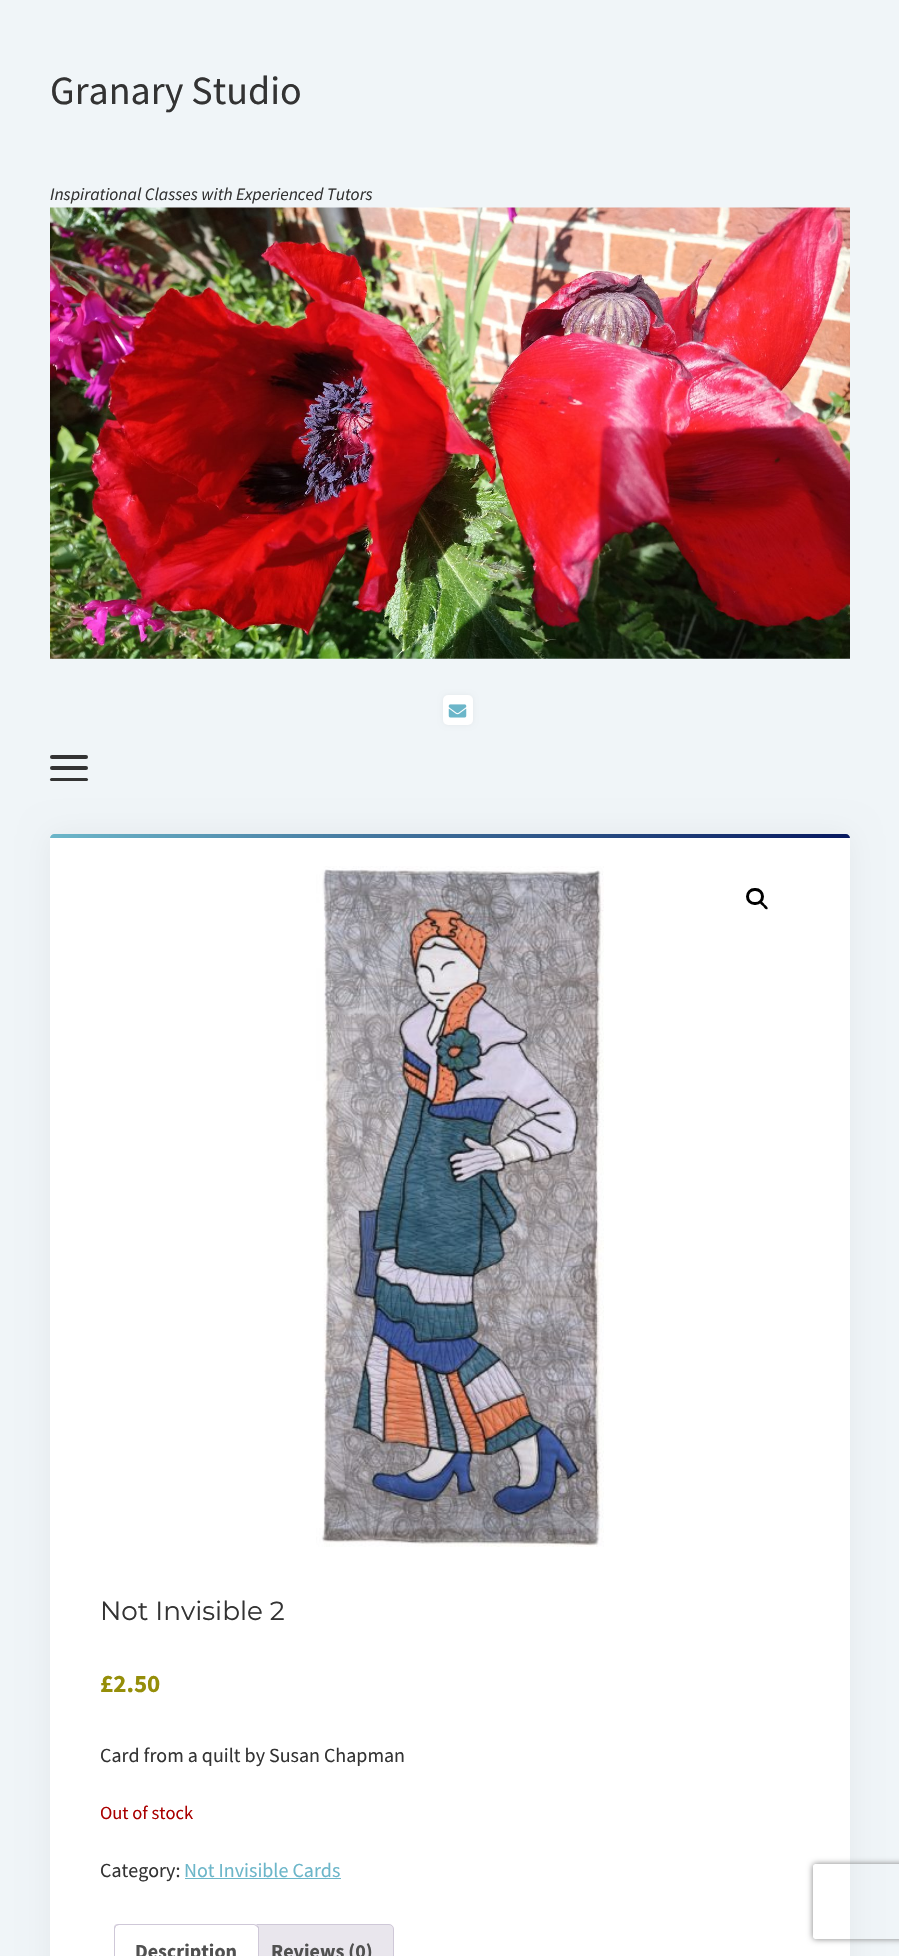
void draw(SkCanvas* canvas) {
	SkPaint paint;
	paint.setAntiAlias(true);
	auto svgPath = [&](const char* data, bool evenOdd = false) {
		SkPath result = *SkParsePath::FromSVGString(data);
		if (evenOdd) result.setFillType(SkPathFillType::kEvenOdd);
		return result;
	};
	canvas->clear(0xfff0f5f8);
	SkFont f1(fontMgr->matchFamilyStyle("Source Sans Pro", SkFontStyle::Normal()), 40);
	f1.setSubpixel(true);
	paint.setColor(0xff333333);
	canvas->drawString("Granary Studio", 50, 104, f1, paint);
	SkFont f2(fontMgr->matchFamilyStyle("Source Sans Pro", SkFontStyle::Italic()), 17.5);
	f2.setSubpixel(true);
	canvas->drawString("Inspirational Classes with Experienced Tutors", 50, 200, f2, paint);
	canvas->drawImageRect(SkImages::DeferredFromEncodedData(SkData::MakeFromFileName("img1.png")), SkRect::MakeXYWH(50, 207, 800, 452), SkSamplingOptions());
	paint.setColor(0x0d000000);
	paint.setMaskFilter(SkMaskFilter::MakeBlur(kNormal_SkBlurStyle, 2.5));
	canvas->drawRoundRect(SkRect::MakeXYWH(443, 695, 30, 30), 5, 5, paint);
	paint.setMaskFilter(nullptr);
	paint.setColor(0xffffffff);
	canvas->drawRoundRect(SkRect::MakeXYWH(443, 695, 30, 30), 5, 5, paint);
	canvas->drawImageRect(SkImages::DeferredFromEncodedData(SkData::MakeFromFileName("img2.png")), SkRect::MakeXYWH(448, 704, 19, 14), SkSamplingOptions());
	paint.setColor(0xff333333);
	canvas->drawRoundRect(SkRect::MakeXYWH(50, 755, 38, 4), 2, 2, paint);
	canvas->drawRoundRect(SkRect::MakeXYWH(50, 766, 38, 4), 2, 2, paint);
	canvas->drawRoundRect(SkRect::MakeXYWH(50, 778, 38, 3), 1.5, 1.5, paint);
	paint.setColor(0x0d000000);
	paint.setMaskFilter(SkMaskFilter::MakeBlur(kNormal_SkBlurStyle, 15));
	canvas->drawRoundRect(SkRect::MakeXYWH(50, 834, 800, 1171), 4, 4, paint);
	paint.setMaskFilter(nullptr);
	paint.setColor(0xffffffff);
	canvas->drawRoundRect(SkRect::MakeXYWH(50, 834, 800, 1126), 4, 4, paint);
	{
		const SkColor colors[] = {0xff6cb6c9, 0xff071960};
		const float stops[] = {0, 1};
		const SkPoint ends[] = {{50, 836}, {850, 836}};
		paint.setShader(SkGradientShader::MakeLinear(ends, colors, stops, 2, SkTileMode::kClamp));
		paint.setAlpha(255);
	}
	canvas->drawPath(svgPath("M54 834H846C848 834 850 836 850 838H50C50 836 52 834 54 834Z"), paint);
	canvas->drawImageRect(SkImages::DeferredFromEncodedData(SkData::MakeFromFileName("img3.png")), SkRect::MakeXYWH(316, 866, 288, 681), SkSamplingOptions());
	paint.setStroke(true);
	paint.setStrokeWidth(3);
	paint.setShader(nullptr);
	paint.setColor(0xff000000);
	canvas->drawRoundRect(SkRect::MakeXYWH(747.5, 889.5, 15, 14), 7, 7, paint);
	paint.setStroke(false);
	canvas->drawPath(svgPath("M760 902C761.5 900.5 764 903.5 764.5 904.5C765.5 905 768.5 907.5 767.5 909C766 910.5 763.5 907 763 906C762 905.5 759 903 760 902Z"), paint);
	SkFont f3(fontMgr->matchFamilyStyle("Montserrat", SkFontStyle(100, SkFontStyle::kNormal_Width, SkFontStyle::kUpright_Slant)), 26.25);
	f3.setSubpixel(true);
	paint.setColor(0xff333333);
	canvas->drawString("Not Invisible 2", 100, 1620, f3, paint);
	SkFont f4(fontMgr->matchFamilyStyle("Source Sans Pro", SkFontStyle::Bold()), 25);
	f4.setSubpixel(true);
	paint.setColor(0xff958e09);
	canvas->drawString("£2.50", 100, 1692, f4, paint);
	SkFont f5(fontMgr->matchFamilyStyle("Source Sans Pro", SkFontStyle::Normal()), 20);
	f5.setSubpixel(true);
	paint.setColor(0xff333333);
	canvas->drawString("Card from a quilt by Susan Chapman", 100, 1762, f5, paint);
	SkFont f6(fontMgr->matchFamilyStyle("Source Sans Pro", SkFontStyle::Normal()), 18.5);
	f6.setSubpixel(true);
	paint.setColor(0xffaa0000);
	canvas->drawString("Out of stock", 100, 1819, f6, paint);
	paint.setColor(0xff333333);
	canvas->drawString("Category:", 100, 1877, f5, paint);
	paint.setColor(0xff6cb6c9);
	canvas->drawRect(SkRect::MakeXYWH(185, 1878, 156, 1), paint);
	canvas->drawString("Not Invisible Cards", 184, 1877, f5, paint);
	paint.setColor(0xffe9e6ed);
	canvas->drawPath(svgPath("M255 1924.5H389C391.5 1924.5 393.5 1926.5 393.5 1929V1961.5H250.5V1929C250.5 1926.5 252.5 1924.5 255 1924.5Z"), paint);
	paint.setStroke(true);
	paint.setStrokeWidth(1);
	paint.setColor(0xffcfc8d8);
	canvas->drawPath(svgPath("M255 1924.5H389C391.5 1924.5 393.5 1926.5 393.5 1929V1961.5H250.5V1929C250.5 1926.5 252.5 1924.5 255 1924.5Z"), paint);
	paint.setStroke(false);
	paint.setColor(0xffffffff);
	canvas->drawPath(svgPath("M119 1924H254C257 1924 259 1926 259 1929V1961H114V1929C114 1926 116 1924 119 1924Z"), paint);
	paint.setColor(0xffcfc8d8);
	canvas->drawPath(svgPath("M119 1924C118 1924 116 1924 115 1925L116 1926L119 1925H254L256 1926L257 1925L254 1924Z"), paint);
	canvas->drawPath(svgPath("M257 1925L259 1927V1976L258 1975V1928L256 1926Z"), paint);
	canvas->drawPath(svgPath("M115 1925C114 1926 114 1928 114 1929V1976L115 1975V1929C115 1928 116 1927 116 1926Z"), paint);
	SkFont f7(fontMgr->matchFamilyStyle("Source Sans Pro", SkFontStyle::Bold()), 20);
	f7.setSubpixel(true);
	paint.setColor(0xff515151);
	canvas->drawString("Description", 135, 1958, f7, paint);
	canvas->drawString("Reviews (0)", 271, 1958, f7, paint);
	canvas->save();
	canvas->clipPath(svgPath("M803 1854H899V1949H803ZM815.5 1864H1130.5C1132 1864 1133 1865 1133 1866.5V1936.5C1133 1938 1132 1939 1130.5 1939H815.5C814 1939 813 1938 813 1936.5V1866.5C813 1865 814 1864 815.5 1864Z", true), true);
	paint.setColor(0xff808080);
	paint.setMaskFilter(SkMaskFilter::MakeBlur(kNormal_SkBlurStyle, 3));
	canvas->drawRoundRect(SkRect::MakeXYWH(813, 1864, 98, 75), 2.5, 2.5, paint);
	paint.setMaskFilter(nullptr);
	canvas->restore();
}
